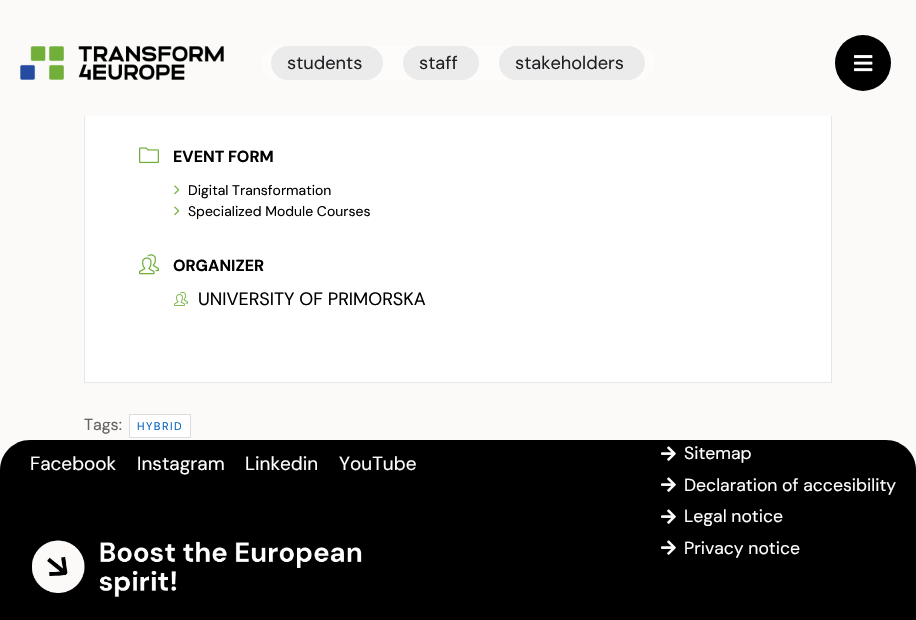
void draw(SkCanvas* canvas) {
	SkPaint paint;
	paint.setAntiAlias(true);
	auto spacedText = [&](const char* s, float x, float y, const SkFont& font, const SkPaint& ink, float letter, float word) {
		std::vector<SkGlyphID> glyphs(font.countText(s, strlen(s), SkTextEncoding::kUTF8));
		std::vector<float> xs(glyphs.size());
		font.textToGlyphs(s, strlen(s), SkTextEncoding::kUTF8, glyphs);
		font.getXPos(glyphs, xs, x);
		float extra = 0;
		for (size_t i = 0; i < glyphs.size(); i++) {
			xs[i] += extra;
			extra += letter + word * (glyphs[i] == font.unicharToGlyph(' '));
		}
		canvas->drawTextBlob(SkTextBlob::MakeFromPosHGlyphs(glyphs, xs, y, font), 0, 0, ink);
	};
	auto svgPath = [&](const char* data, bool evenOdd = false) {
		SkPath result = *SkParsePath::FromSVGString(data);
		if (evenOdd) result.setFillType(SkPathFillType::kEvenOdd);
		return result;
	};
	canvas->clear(0xfffbfaf8);
	paint.setColor(0xffffffff);
	canvas->drawRect(SkRect::MakeXYWH(85, 116, 746, 266), paint);
	paint.setStroke(true);
	paint.setStrokeWidth(1);
	paint.setColor(0xffe6e7e8);
	canvas->drawRect(SkRect::MakeXYWH(84.5, -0.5, 747, 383), paint);
	paint.setStroke(false);
	paint.setColor(0xfffbfaf8);
	canvas->drawRect(SkRect::MakeXYWH(84, 0, 748, 116), paint);
	canvas->drawImageRect(SkImages::DeferredFromEncodedData(SkData::MakeFromFileName("img1.png")), SkRect::MakeXYWH(20, 46, 204, 34), SkSamplingOptions());
	paint.setColor(0xfffdfcfb);
	canvas->drawRoundRect(SkRect::MakeXYWH(261, 46, 394, 34), 17, 17, paint);
	paint.setColor(0xffebebeb);
	canvas->drawRoundRect(SkRect::MakeXYWH(271, 46, 112, 34), 17, 17, paint);
	SkFont f1(fontMgr->matchFamilyStyle("DM Sans", SkFontStyle::Normal()), 18.25);
	f1.setSubpixel(true);
	paint.setColor(0xff1f2124);
	canvas->drawString("students", 287, 69, f1, paint);
	paint.setColor(0xffebebeb);
	canvas->drawRoundRect(SkRect::MakeXYWH(403, 46, 76, 34), 17, 17, paint);
	paint.setColor(0xff1f2124);
	canvas->drawString("staff", 419, 69, f1, paint);
	paint.setColor(0xffebebeb);
	canvas->drawRoundRect(SkRect::MakeXYWH(499, 46, 146, 34), 17, 17, paint);
	paint.setColor(0xff1f2124);
	canvas->drawString("stakeholders", 515, 69, f1, paint);
	paint.setColor(0xff000000);
	canvas->drawCircle(863, 63, 28, paint);
	canvas->drawImageRect(SkImages::DeferredFromEncodedData(SkData::MakeFromFileName("img2.png")), SkRect::MakeXYWH(854, 55, 19, 17), SkSamplingOptions());
	canvas->drawImageRect(SkImages::DeferredFromEncodedData(SkData::MakeFromFileName("img3.png")), SkRect::MakeXYWH(139, 147, 20, 17), SkSamplingOptions());
	SkFont f2(fontMgr->matchFamilyStyle("DM Sans", SkFontStyle::Bold()), 16);
	f2.setSubpixel(true);
	canvas->drawString("EVENT FORM", 173, 162, f2, paint);
	canvas->drawImageRect(SkImages::DeferredFromEncodedData(SkData::MakeFromFileName("img4.png")), SkRect::MakeXYWH(174, 185, 6, 10), SkSamplingOptions());
	SkFont f3(fontMgr->matchFamilyStyle("DM Sans", SkFontStyle::Normal()), 14);
	f3.setSubpixel(true);
	canvas->drawString("Digital Transformation", 188, 195, f3, paint);
	canvas->drawImageRect(SkImages::DeferredFromEncodedData(SkData::MakeFromFileName("img4.png")), SkRect::MakeXYWH(174, 206, 6, 10), SkSamplingOptions());
	canvas->drawString("Specialized Module Courses", 188, 216, f3, paint);
	canvas->drawImageRect(SkImages::DeferredFromEncodedData(SkData::MakeFromFileName("img5.png")), SkRect::MakeXYWH(139, 254, 20, 21), SkSamplingOptions());
	canvas->drawString("ORGANIZER", 173, 271, f2, paint);
	canvas->drawImageRect(SkImages::DeferredFromEncodedData(SkData::MakeFromFileName("img6.png")), SkRect::MakeXYWH(174, 291, 14, 15), SkSamplingOptions());
	SkFont f4(fontMgr->matchFamilyStyle("DM Sans", SkFontStyle::Normal()), 18);
	f4.setSubpixel(true);
	canvas->drawString("UNIVERSITY OF PRIMORSKA", 198, 305, f4, paint);
	SkFont f5(fontMgr->matchFamilyStyle("DM Sans", SkFontStyle::Normal()), 16);
	f5.setSubpixel(true);
	paint.setColor(0xff626262);
	canvas->drawString("Tags:", 84, 430, f5, paint);
	paint.setColor(0xffffffff);
	canvas->drawRect(SkRect::MakeXYWH(129.5, 414.5, 61, 23), paint);
	paint.setStroke(true);
	paint.setColor(0xffdddddd);
	canvas->drawRect(SkRect::MakeXYWH(129.5, 414.5, 61, 23), paint);
	SkFont f6(fontMgr->matchFamilyStyle("DM Sans", SkFontStyle::Normal()), 11);
	f6.setSubpixel(true);
	paint.setStroke(false);
	paint.setColor(0xff0563c1);
	spacedText("HYBRID", 137, 430, f6, paint, 1.5, 0);
	paint.setColor(0xff000000);
	canvas->drawPath(svgPath("M30 440H886C902.5 440 916 453.5 916 470V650H0V470C0 453.5 13.5 440 30 440Z"), paint);
	SkFont f7(fontMgr->matchFamilyStyle("DM Sans", SkFontStyle::Normal()), 19);
	f7.setSubpixel(true);
	paint.setColor(0xffffffff);
	canvas->drawString("Facebook", 30, 470, f7, paint);
	canvas->drawString("Instagram", 137, 470, f7, paint);
	canvas->drawString("Linkedin", 245, 470, f7, paint);
	canvas->drawString("YouTube", 339, 470, f7, paint);
	canvas->drawImageRect(SkImages::DeferredFromEncodedData(SkData::MakeFromFileName("img7.png")), SkRect::MakeXYWH(32, 540, 330, 57), SkSamplingOptions());
	canvas->drawImageRect(SkImages::DeferredFromEncodedData(SkData::MakeFromFileName("img8.png")), SkRect::MakeXYWH(661, 446, 15, 15), SkSamplingOptions());
	SkFont f8(fontMgr->matchFamilyStyle("DM Sans", SkFontStyle::Normal()), 17.6);
	f8.setSubpixel(true);
	canvas->drawString("Sitemap", 684, 459, f8, paint);
	canvas->drawImageRect(SkImages::DeferredFromEncodedData(SkData::MakeFromFileName("img8.png")), SkRect::MakeXYWH(661, 477, 15, 15), SkSamplingOptions());
	canvas->drawString("Declaration of accesibility", 684, 491, f8, paint);
	canvas->drawImageRect(SkImages::DeferredFromEncodedData(SkData::MakeFromFileName("img8.png")), SkRect::MakeXYWH(661, 509, 15, 15), SkSamplingOptions());
	canvas->drawString("Legal notice", 684, 522, f8, paint);
	canvas->drawImageRect(SkImages::DeferredFromEncodedData(SkData::MakeFromFileName("img8.png")), SkRect::MakeXYWH(661, 540, 15, 15), SkSamplingOptions());
	canvas->drawString("Privacy notice", 684, 554, f8, paint);
}
